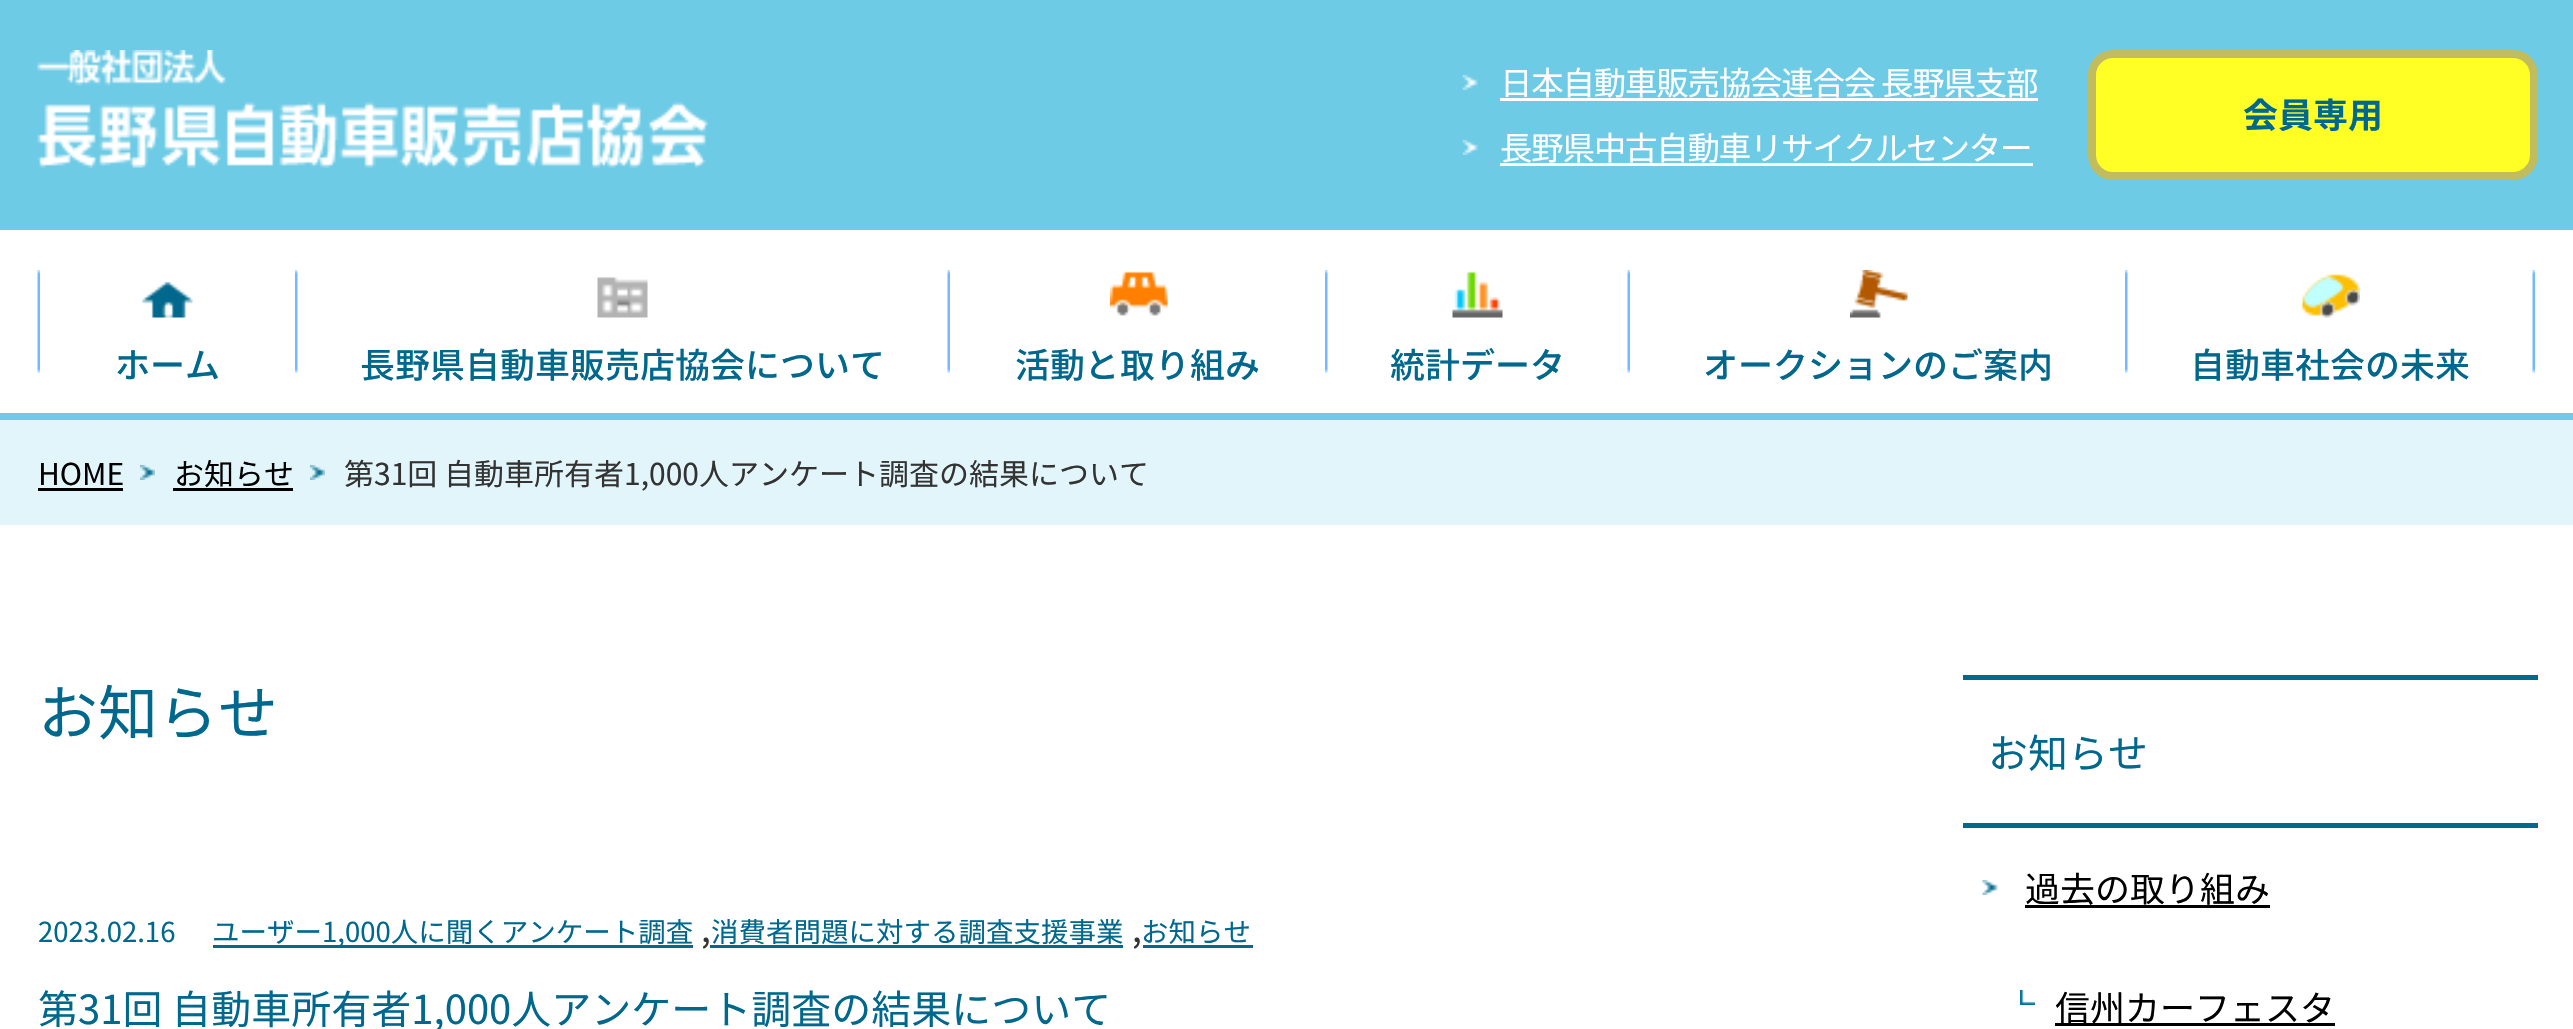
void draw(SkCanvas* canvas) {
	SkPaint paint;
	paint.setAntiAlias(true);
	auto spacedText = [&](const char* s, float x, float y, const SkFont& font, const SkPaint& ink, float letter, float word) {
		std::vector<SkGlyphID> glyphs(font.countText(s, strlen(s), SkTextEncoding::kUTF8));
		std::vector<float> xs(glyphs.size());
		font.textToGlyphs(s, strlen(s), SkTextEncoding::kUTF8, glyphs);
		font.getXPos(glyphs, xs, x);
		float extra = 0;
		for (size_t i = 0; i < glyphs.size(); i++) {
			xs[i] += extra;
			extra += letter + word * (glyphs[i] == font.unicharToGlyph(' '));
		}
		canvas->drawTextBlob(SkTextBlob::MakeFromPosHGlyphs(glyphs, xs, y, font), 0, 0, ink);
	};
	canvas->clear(0xffffffff);
	paint.setColor(0xff6ecbe6);
	canvas->drawRect(SkRect::MakeXYWH(0, 0, 2573, 230), paint);
	canvas->drawImageRect(SkImages::DeferredFromEncodedData(SkData::MakeFromFileName("img1.png")), SkRect::MakeXYWH(37, 50, 671, 118), SkSamplingOptions());
	canvas->drawImageRect(SkImages::DeferredFromEncodedData(SkData::MakeFromFileName("img2.png")), SkRect::MakeXYWH(1462, 75, 16, 15), SkSamplingOptions());
	SkFont f1(fontMgr->matchFamilyStyle("Noto Sans JP", SkFontStyle::Normal()), 32.5);
	f1.setSubpixel(true);
	paint.setColor(0xffffffff);
	spacedText("日本自動車販売協会連合会 長野県支部", 1500, 95, f1, paint, -1.25, 0);
	canvas->drawRect(SkRect::MakeXYWH(1500, 98, 538, 3), paint);
	canvas->drawImageRect(SkImages::DeferredFromEncodedData(SkData::MakeFromFileName("img2.png")), SkRect::MakeXYWH(1462, 140, 16, 15), SkSamplingOptions());
	spacedText("長野県中古自動車リサイクルセンター", 1500, 160, f1, paint, -1.25, 0);
	canvas->drawRect(SkRect::MakeXYWH(1500, 163, 533, 3), paint);
	paint.setColor(0xffffff26);
	canvas->drawRoundRect(SkRect::MakeXYWH(2092, 54, 442, 122), 21, 21, paint);
	paint.setStroke(true);
	paint.setStrokeWidth(8);
	paint.setColor(0xffc1bc5e);
	canvas->drawRoundRect(SkRect::MakeXYWH(2092, 54, 442, 122), 21, 21, paint);
	SkFont f2(fontMgr->matchFamilyStyle("Noto Sans JP", SkFontStyle::Bold()), 35);
	f2.setSubpixel(true);
	paint.setStroke(false);
	paint.setColor(0xff00688c);
	canvas->drawString("会員専用", 2243, 128, f2, paint);
	paint.setColor(0xff6ecbe6);
	canvas->drawRect(SkRect::MakeXYWH(0, 413, 2573, 7), paint);
	canvas->drawImageRect(SkImages::DeferredFromEncodedData(SkData::MakeFromFileName("img3.png")), SkRect::MakeXYWH(37, 270, 3, 103), SkSamplingOptions());
	canvas->drawImageRect(SkImages::DeferredFromEncodedData(SkData::MakeFromFileName("img4.png")), SkRect::MakeXYWH(295, 270, 3, 103), SkSamplingOptions());
	canvas->drawImageRect(SkImages::DeferredFromEncodedData(SkData::MakeFromFileName("img5.png")), SkRect::MakeXYWH(142, 281, 51, 37), SkSamplingOptions());
	SkFont f3(fontMgr->matchFamilyStyle("Noto Sans JP", SkFontStyle(500, SkFontStyle::kNormal_Width, SkFontStyle::kUpright_Slant)), 35);
	f3.setSubpixel(true);
	paint.setColor(0xff00688c);
	canvas->drawString("ホーム", 115, 378, f3, paint);
	canvas->drawImageRect(SkImages::DeferredFromEncodedData(SkData::MakeFromFileName("img3.png")), SkRect::MakeXYWH(947, 270, 3, 103), SkSamplingOptions());
	canvas->drawImageRect(SkImages::DeferredFromEncodedData(SkData::MakeFromFileName("img6.png")), SkRect::MakeXYWH(597, 277, 51, 41), SkSamplingOptions());
	canvas->drawString("長野県自動車販売店協会について", 360, 378, f3, paint);
	canvas->drawImageRect(SkImages::DeferredFromEncodedData(SkData::MakeFromFileName("img4.png")), SkRect::MakeXYWH(1325, 270, 3, 103), SkSamplingOptions());
	canvas->drawImageRect(SkImages::DeferredFromEncodedData(SkData::MakeFromFileName("img7.png")), SkRect::MakeXYWH(1110, 271, 58, 45), SkSamplingOptions());
	canvas->drawString("活動と取り組み", 1015, 378, f3, paint);
	canvas->drawImageRect(SkImages::DeferredFromEncodedData(SkData::MakeFromFileName("img3.png")), SkRect::MakeXYWH(1627, 270, 3, 103), SkSamplingOptions());
	canvas->drawImageRect(SkImages::DeferredFromEncodedData(SkData::MakeFromFileName("img8.png")), SkRect::MakeXYWH(1452, 271, 51, 47), SkSamplingOptions());
	canvas->drawString("統計データ", 1390, 378, f3, paint);
	canvas->drawImageRect(SkImages::DeferredFromEncodedData(SkData::MakeFromFileName("img4.png")), SkRect::MakeXYWH(2125, 270, 3, 103), SkSamplingOptions());
	canvas->drawImageRect(SkImages::DeferredFromEncodedData(SkData::MakeFromFileName("img9.png")), SkRect::MakeXYWH(1850, 270, 58, 48), SkSamplingOptions());
	canvas->drawString("オークションのご案内", 1703, 378, f3, paint);
	canvas->drawImageRect(SkImages::DeferredFromEncodedData(SkData::MakeFromFileName("img3.png")), SkRect::MakeXYWH(2532, 270, 3, 103), SkSamplingOptions());
	canvas->drawImageRect(SkImages::DeferredFromEncodedData(SkData::MakeFromFileName("img10.png")), SkRect::MakeXYWH(2302, 274, 58, 44), SkSamplingOptions());
	canvas->drawString("自動車社会の未来", 2190, 378, f3, paint);
	paint.setColor(0xffe1f5fa);
	canvas->drawRect(SkRect::MakeXYWH(0, 420, 2573, 105), paint);
	SkFont f4(fontMgr->matchFamilyStyle("Noto Sans JP", SkFontStyle::Normal()), 30);
	f4.setSubpixel(true);
	paint.setColor(0xff000000);
	canvas->drawString("HOME", 38, 485, f4, paint);
	canvas->drawRect(SkRect::MakeXYWH(38, 488, 85, 3), paint);
	canvas->drawImageRect(SkImages::DeferredFromEncodedData(SkData::MakeFromFileName("img11.png")), SkRect::MakeXYWH(140, 465, 15, 15), SkSamplingOptions());
	canvas->drawString("お知らせ", 174, 485, f4, paint);
	canvas->drawRect(SkRect::MakeXYWH(173, 488, 120, 3), paint);
	canvas->drawImageRect(SkImages::DeferredFromEncodedData(SkData::MakeFromFileName("img11.png")), SkRect::MakeXYWH(310, 465, 15, 15), SkSamplingOptions());
	paint.setColor(0xff333333);
	canvas->drawString("第31回 自動車所有者1,000人アンケート調査の結果について", 344, 485, f4, paint);
	SkFont f5(fontMgr->matchFamilyStyle("Noto Sans JP", SkFontStyle::Normal()), 60);
	f5.setSubpixel(true);
	paint.setColor(0xff00688c);
	canvas->drawString("お知らせ", 38, 735, f5, paint);
	SkFont f6(fontMgr->matchFamilyStyle("Noto Sans JP", SkFontStyle::Normal()), 27.5);
	f6.setSubpixel(true);
	canvas->drawString("2023.02.16", 38, 942, f6, paint);
	paint.setColor(0xff00698c);
	canvas->drawRect(SkRect::MakeXYWH(213, 945, 480, 3), paint);
	paint.setColor(0xff00688c);
	canvas->drawString("ユーザー1,000人に聞くアンケート調査", 212, 942, f6, paint);
	SkFont f7(fontMgr->matchFamilyStyle("Noto Sans JP", SkFontStyle::Normal()), 35);
	f7.setSubpixel(true);
	paint.setColor(0xff333333);
	canvas->drawString(",", 701, 942, f7, paint);
	paint.setColor(0xff00698c);
	canvas->drawRect(SkRect::MakeXYWH(710, 945, 413, 3), paint);
	paint.setColor(0xff00688c);
	canvas->drawString("消費者問題に対する調査支援事業", 711, 942, f6, paint);
	paint.setColor(0xff333333);
	canvas->drawString(",", 1132, 942, f7, paint);
	paint.setColor(0xff00698c);
	canvas->drawRect(SkRect::MakeXYWH(1143, 945, 110, 3), paint);
	paint.setColor(0xff00688c);
	canvas->drawString("お知らせ", 1141, 942, f6, paint);
	SkFont f8(fontMgr->matchFamilyStyle("Noto Sans JP", SkFontStyle::Normal()), 40);
	f8.setSubpixel(true);
	canvas->drawString("第31回 自動車所有者1,000人アンケート調査の結果について", 38, 1024, f8, paint);
	paint.setColor(0xff00698c);
	canvas->drawRect(SkRect::MakeXYWH(1963, 675, 575, 5), paint);
	canvas->drawRect(SkRect::MakeXYWH(1963, 823, 575, 5), paint);
	paint.setColor(0xff00688c);
	canvas->drawString("お知らせ", 1988, 768, f8, paint);
	canvas->drawImageRect(SkImages::DeferredFromEncodedData(SkData::MakeFromFileName("img12.png")), SkRect::MakeXYWH(1982, 880, 16, 15), SkSamplingOptions());
	paint.setColor(0xff000000);
	canvas->drawString("過去の取り組み", 2025, 902, f7, paint);
	canvas->drawRect(SkRect::MakeXYWH(2025, 905, 245, 3), paint);
	canvas->drawImageRect(SkImages::DeferredFromEncodedData(SkData::MakeFromFileName("img13.png")), SkRect::MakeXYWH(2020, 990, 15, 15), SkSamplingOptions());
	canvas->drawRect(SkRect::MakeXYWH(2055, 1023, 280, 3), paint);
	canvas->drawString("信州カーフェスタ", 2055, 1021, f7, paint);
}
